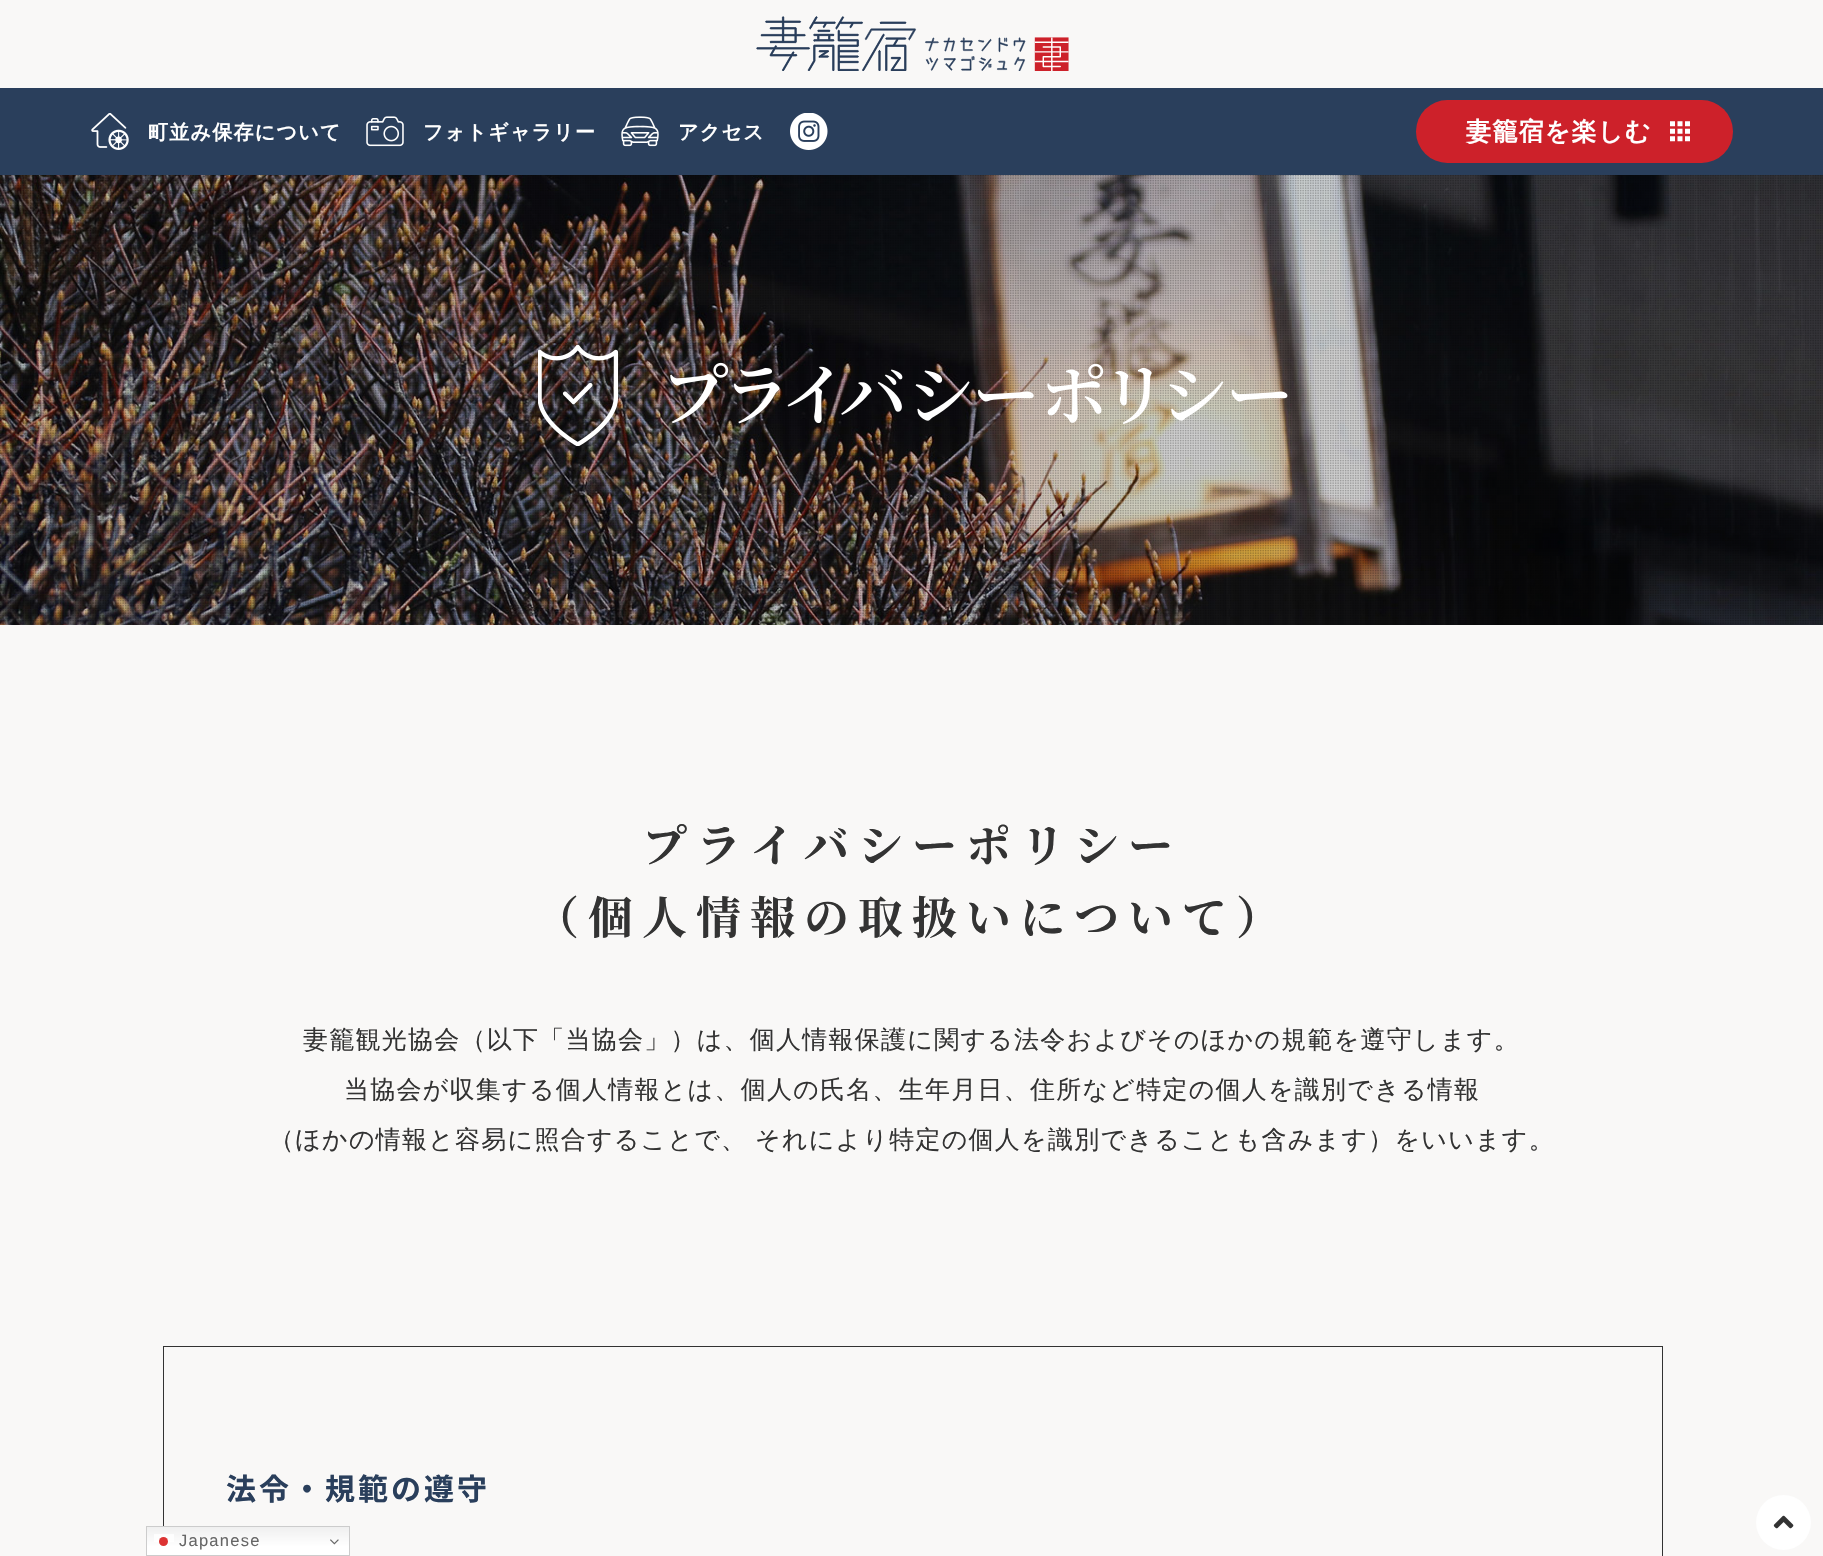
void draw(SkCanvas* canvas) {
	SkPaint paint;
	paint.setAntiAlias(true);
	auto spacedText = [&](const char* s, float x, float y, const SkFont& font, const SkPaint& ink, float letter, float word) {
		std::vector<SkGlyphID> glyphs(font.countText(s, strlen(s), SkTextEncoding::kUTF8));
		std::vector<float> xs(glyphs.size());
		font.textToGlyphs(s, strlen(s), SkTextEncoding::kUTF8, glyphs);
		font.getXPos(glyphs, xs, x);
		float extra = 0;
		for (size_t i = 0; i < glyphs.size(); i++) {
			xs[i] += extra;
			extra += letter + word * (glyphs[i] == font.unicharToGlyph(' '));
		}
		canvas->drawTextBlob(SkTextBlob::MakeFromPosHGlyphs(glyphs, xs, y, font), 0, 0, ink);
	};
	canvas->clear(0xfff9f8f7);
	canvas->drawImageRect(SkImages::DeferredFromEncodedData(SkData::MakeFromFileName("img1.png")), SkRect::MakeXYWH(756, 16, 313, 55), SkSamplingOptions());
	paint.setColor(0xff2a3f5c);
	canvas->drawRect(SkRect::MakeXYWH(0, 88, 1823, 87), paint);
	canvas->drawImageRect(SkImages::DeferredFromEncodedData(SkData::MakeFromFileName("img2.png")), SkRect::MakeXYWH(91, 113, 38, 37), SkSamplingOptions());
	SkFont f1(fontMgr->matchFamilyStyle("WenQuanYi Zen Hei", SkFontStyle::Bold()), 20);
	f1.setSubpixel(true);
	paint.setColor(0xffffffff);
	spacedText("町並み保存について", 148, 139, f1, paint, 1.25, 0);
	canvas->drawImageRect(SkImages::DeferredFromEncodedData(SkData::MakeFromFileName("img3.png")), SkRect::MakeXYWH(366, 116, 38, 31), SkSamplingOptions());
	spacedText("フォトギャラリー", 423, 139, f1, paint, 1.25, 0);
	canvas->drawImageRect(SkImages::DeferredFromEncodedData(SkData::MakeFromFileName("img4.png")), SkRect::MakeXYWH(621, 116, 38, 31), SkSamplingOptions());
	spacedText("アクセス", 678, 139, f1, paint, 1.25, 0);
	canvas->drawImageRect(SkImages::DeferredFromEncodedData(SkData::MakeFromFileName("img5.png")), SkRect::MakeXYWH(790, 113, 38, 37), SkSamplingOptions());
	paint.setColor(0xffcd212a);
	canvas->drawRoundRect(SkRect::MakeXYWH(1416, 100, 317, 63), 31.5, 31.5, paint);
	SkFont f2(fontMgr->matchFamilyStyle("WenQuanYi Zen Hei", SkFontStyle::Bold()), 25);
	f2.setSubpixel(true);
	paint.setColor(0xffffffff);
	spacedText("妻籠宿を楽しむ", 1466, 140, f2, paint, 1.25, 0);
	canvas->drawImageRect(SkImages::DeferredFromEncodedData(SkData::MakeFromFileName("img6.png")), SkRect::MakeXYWH(1670, 121, 20, 21), SkSamplingOptions());
	canvas->drawImageRect(SkImages::DeferredFromEncodedData(SkData::MakeFromFileName("img7.png")), SkRect::MakeXYWH(0, 175, 1823, 450), SkSamplingOptions());
	canvas->drawImageRect(SkImages::DeferredFromEncodedData(SkData::MakeFromFileName("img8.png")), SkRect::MakeXYWH(0, 175, 1823, 450), SkSamplingOptions());
	canvas->drawImageRect(SkImages::DeferredFromEncodedData(SkData::MakeFromFileName("img9.png")), SkRect::MakeXYWH(538, 345, 750, 101), SkSamplingOptions());
	SkFont f3(fontMgr->matchFamilyStyle("Noto Serif JP", SkFontStyle::Bold()), 45);
	f3.setSubpixel(true);
	paint.setColor(0xff333333);
	spacedText("プライバシーポリシー", 642, 862, f3, paint, 9, 0);
	spacedText("（個人情報の取扱いについて）", 534, 934, f3, paint, 9, 0);
	SkFont f4(fontMgr->matchFamilyStyle("WenQuanYi Zen Hei", SkFontStyle(500, SkFontStyle::kNormal_Width, SkFontStyle::kUpright_Slant)), 25);
	f4.setSubpixel(true);
	spacedText("妻籠観光協会（以下「当協会」）は、個人情報保護に関する法令およびそのほかの規範を遵守します。", 303, 1048, f4, paint, 1.25, 0);
	spacedText("当協会が収集する個人情報とは、個人の氏名、生年月日、住所など特定の個人を識別できる情報", 344, 1098, f4, paint, 1.25, 0);
	spacedText("（ほかの情報と容易に照合することで、 それにより特定の個人を識別できることも含みます）をいいます。", 269, 1148, f4, paint, 1.25, -1);
	paint.setStroke(true);
	paint.setStrokeWidth(1);
	canvas->drawRect(SkRect::MakeXYWH(163.5, 1346.5, 1499, 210), paint);
	SkFont f5(fontMgr->matchFamilyStyle("Noto Sans JP", SkFontStyle::Bold()), 30);
	f5.setSubpixel(true);
	paint.setStroke(false);
	paint.setColor(0xff2a3f5c);
	spacedText("法令・規範の遵守", 226, 1500, f5, paint, 3, 0);
	{
		const SkColor colors[] = {0xffefefef, 0xffffffff};
		const float stops[] = {0, 0.7};
		const SkPoint ends[] = {{248, 1526}, {248, 1556}};
		paint.setShader(SkGradientShader::MakeLinear(ends, colors, stops, 2, SkTileMode::kClamp));
		paint.setAlpha(255);
	}
	canvas->drawRect(SkRect::MakeXYWH(147, 1527, 202, 28), paint);
	paint.setStroke(true);
	paint.setShader(nullptr);
	paint.setColor(0xffcccccc);
	canvas->drawRect(SkRect::MakeXYWH(146.5, 1526.5, 203, 29), paint);
	paint.setStroke(false);
	paint.setColor(0xccffffff);
	canvas->drawRect(SkRect::MakeXYWH(154, 1534, 20, 8), paint);
	SkFont f6(fontMgr->matchFamilyStyle("Liberation Sans", SkFontStyle::Normal()), 16.5);
	f6.setSubpixel(true);
	paint.setColor(0xff666666);
	spacedText("Japanese", 179, 1546, f6, paint, 1.25, 0);
	paint.setColor(0xffdc3333);
	canvas->drawCircle(163.5, 1541.5, 4.5, paint);
	canvas->drawImageRect(SkImages::DeferredFromEncodedData(SkData::MakeFromFileName("img10.png")), SkRect::MakeXYWH(330, 1539, 9, 6), SkSamplingOptions());
	paint.setColor(0xffffffff);
	canvas->drawCircle(1783.5, 1522.5, 27.5, paint);
	canvas->drawImageRect(SkImages::DeferredFromEncodedData(SkData::MakeFromFileName("img11.png")), SkRect::MakeXYWH(1773, 1515, 21, 14), SkSamplingOptions());
}
